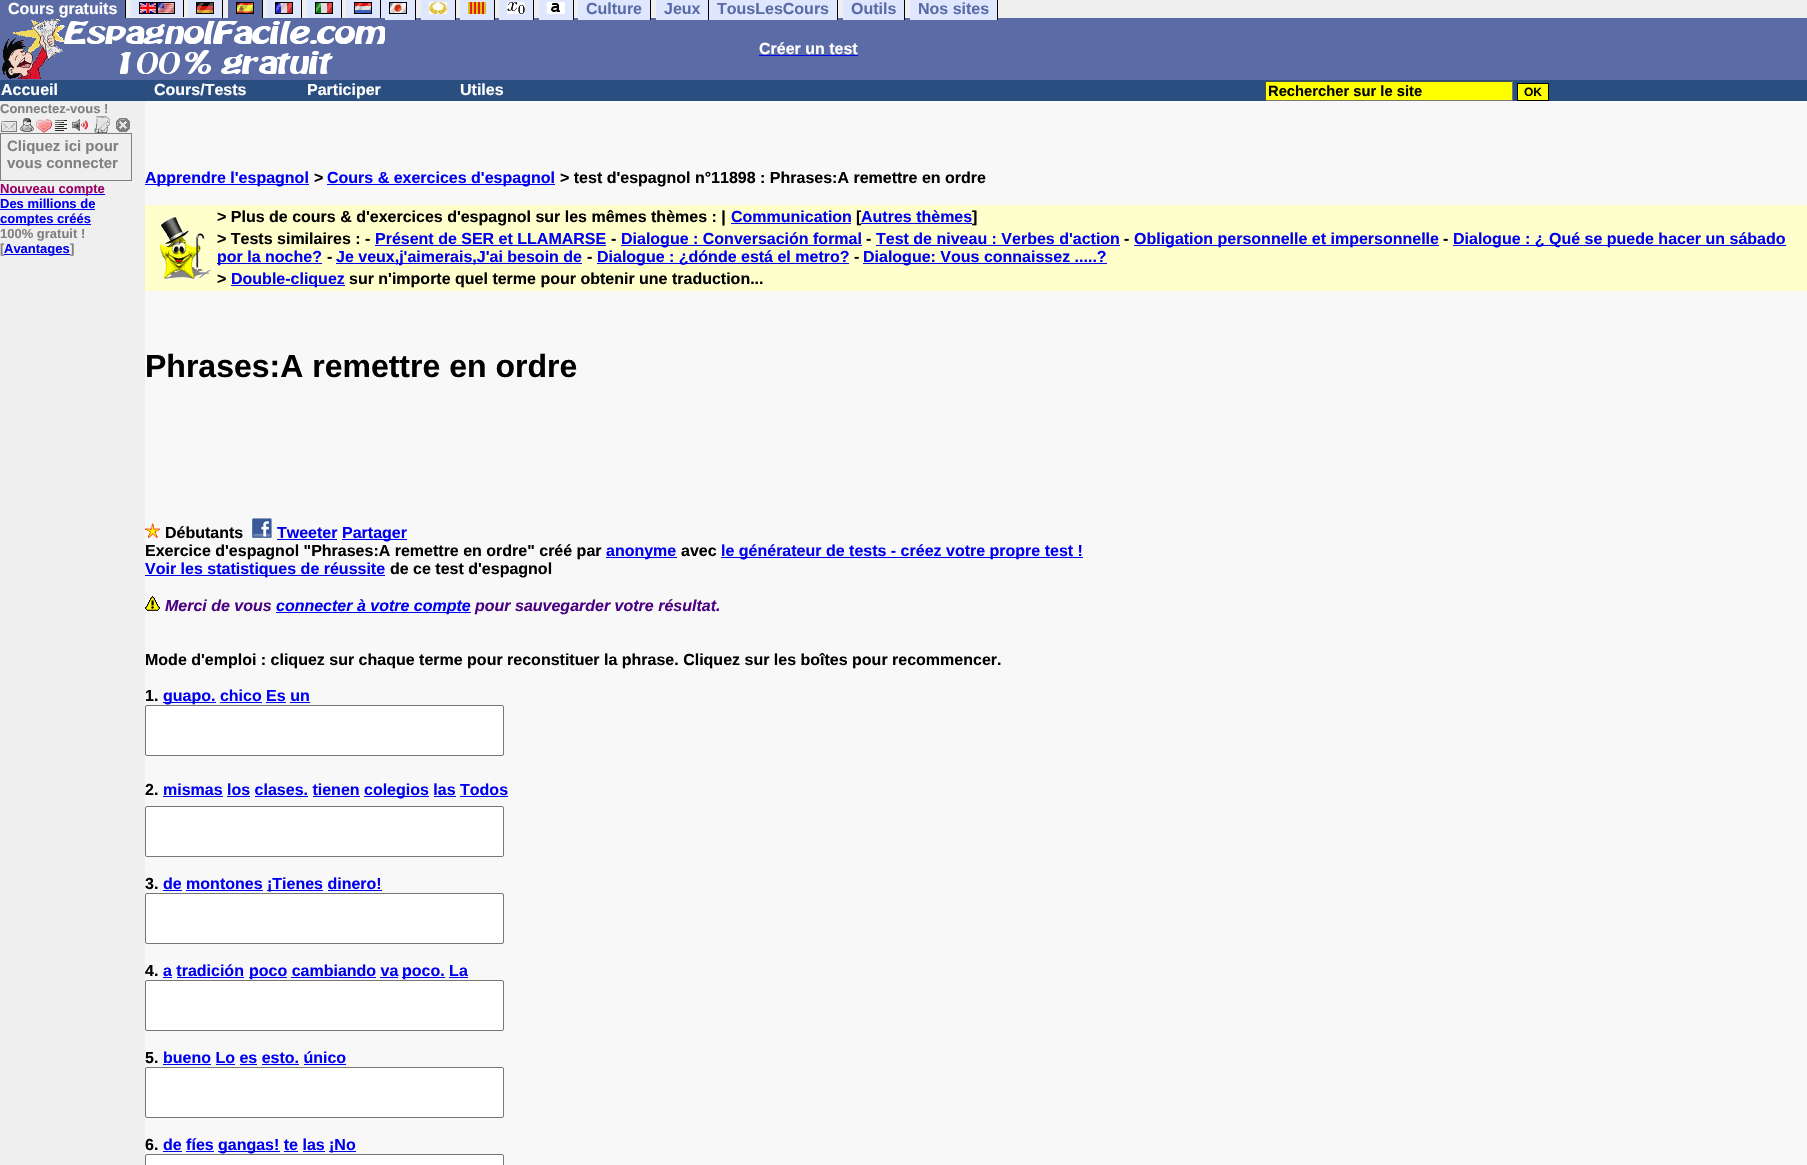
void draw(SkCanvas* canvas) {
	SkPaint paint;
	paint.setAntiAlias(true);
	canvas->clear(0xffefefef);
	paint.setColor(0xff5a6ba5);
	canvas->drawRect(SkRect::MakeXYWH(0, 0, 125, 18), paint);
	SkFont f1(fontMgr->matchFamilyStyle("Liberation Sans", SkFontStyle::Bold()), 16);
	f1.setSubpixel(true);
	paint.setColor(0xffffffff);
	canvas->drawString("Cours gratuits", 8, 14, f1, paint);
	paint.setColor(0xff5a6ba5);
	canvas->drawRect(SkRect::MakeXYWH(0, 18, 1807, 62), paint);
	paint.setColor(0xff000000);
	canvas->drawRect(SkRect::MakeXYWH(125, 0, 1, 20), paint);
	paint.setColor(0xffdfe7ff);
	canvas->drawRect(SkRect::MakeXYWH(131, 0, 52, 17), paint);
	paint.setColor(0xff000000);
	canvas->drawRect(SkRect::MakeXYWH(183, 0, 1, 17), paint);
	paint.setColor(0xffdfe7ff);
	canvas->drawRect(SkRect::MakeXYWH(188, 0, 34, 18), paint);
	paint.setColor(0xff000000);
	canvas->drawRect(SkRect::MakeXYWH(222, 0, 1, 20), paint);
	paint.setColor(0xff5a6ba5);
	canvas->drawRect(SkRect::MakeXYWH(228, 0, 34, 18), paint);
	paint.setColor(0xff000000);
	canvas->drawRect(SkRect::MakeXYWH(262, 0, 1, 20), paint);
	paint.setColor(0xffdfe7ff);
	canvas->drawRect(SkRect::MakeXYWH(267, 0, 34, 18), paint);
	paint.setColor(0xff000000);
	canvas->drawRect(SkRect::MakeXYWH(301, 0, 1, 20), paint);
	paint.setColor(0xffdfe7ff);
	canvas->drawRect(SkRect::MakeXYWH(307, 0, 34, 18), paint);
	paint.setColor(0xff000000);
	canvas->drawRect(SkRect::MakeXYWH(341, 0, 1, 20), paint);
	paint.setColor(0xffdfe7ff);
	canvas->drawRect(SkRect::MakeXYWH(346, 0, 34, 18), paint);
	paint.setColor(0xff000000);
	canvas->drawRect(SkRect::MakeXYWH(380, 0, 1, 20), paint);
	paint.setColor(0xffdfe7ff);
	canvas->drawRect(SkRect::MakeXYWH(381, 0, 34, 20), paint);
	paint.setColor(0xff000000);
	canvas->drawRect(SkRect::MakeXYWH(415, 0, 1, 20), paint);
	paint.setColor(0xffdfe7ff);
	canvas->drawRect(SkRect::MakeXYWH(421, 0, 34, 20), paint);
	paint.setColor(0xff000000);
	canvas->drawRect(SkRect::MakeXYWH(455, 0, 1, 20), paint);
	paint.setColor(0xffdfe7ff);
	canvas->drawRect(SkRect::MakeXYWH(460, 0, 34, 20), paint);
	paint.setColor(0xff000000);
	canvas->drawRect(SkRect::MakeXYWH(494, 0, 1, 20), paint);
	paint.setColor(0xffdfe7ff);
	canvas->drawRect(SkRect::MakeXYWH(499, 0, 34, 20), paint);
	paint.setColor(0xff000000);
	canvas->drawRect(SkRect::MakeXYWH(533, 0, 1, 20), paint);
	paint.setColor(0xffdfe7ff);
	canvas->drawRect(SkRect::MakeXYWH(539, 0, 34, 20), paint);
	paint.setColor(0xff000000);
	canvas->drawRect(SkRect::MakeXYWH(573, 0, 1, 20), paint);
	canvas->drawImageRect(SkImages::DeferredFromEncodedData(SkData::MakeFromFileName("img1.png")), SkRect::MakeXYWH(139, 2, 18, 12), SkSamplingOptions());
	canvas->drawImageRect(SkImages::DeferredFromEncodedData(SkData::MakeFromFileName("img2.png")), SkRect::MakeXYWH(157, 2, 18, 12), SkSamplingOptions());
	canvas->drawImageRect(SkImages::DeferredFromEncodedData(SkData::MakeFromFileName("img3.png")), SkRect::MakeXYWH(196, 2, 18, 12), SkSamplingOptions());
	canvas->drawImageRect(SkImages::DeferredFromEncodedData(SkData::MakeFromFileName("img4.png")), SkRect::MakeXYWH(236, 2, 18, 12), SkSamplingOptions());
	canvas->drawImageRect(SkImages::DeferredFromEncodedData(SkData::MakeFromFileName("img5.png")), SkRect::MakeXYWH(275, 2, 18, 12), SkSamplingOptions());
	canvas->drawImageRect(SkImages::DeferredFromEncodedData(SkData::MakeFromFileName("img6.png")), SkRect::MakeXYWH(315, 2, 18, 12), SkSamplingOptions());
	canvas->drawImageRect(SkImages::DeferredFromEncodedData(SkData::MakeFromFileName("img7.png")), SkRect::MakeXYWH(354, 2, 18, 12), SkSamplingOptions());
	canvas->drawImageRect(SkImages::DeferredFromEncodedData(SkData::MakeFromFileName("img8.png")), SkRect::MakeXYWH(389, 2, 18, 12), SkSamplingOptions());
	canvas->drawImageRect(SkImages::DeferredFromEncodedData(SkData::MakeFromFileName("img9.png")), SkRect::MakeXYWH(429, 2, 18, 12), SkSamplingOptions());
	canvas->drawImageRect(SkImages::DeferredFromEncodedData(SkData::MakeFromFileName("img10.png")), SkRect::MakeXYWH(468, 2, 18, 12), SkSamplingOptions());
	canvas->drawImageRect(SkImages::DeferredFromEncodedData(SkData::MakeFromFileName("img11.png")), SkRect::MakeXYWH(507, 2, 18, 12), SkSamplingOptions());
	canvas->drawImageRect(SkImages::DeferredFromEncodedData(SkData::MakeFromFileName("img12.png")), SkRect::MakeXYWH(547, 2, 18, 12), SkSamplingOptions());
	paint.setColor(0xffdfe7ff);
	canvas->drawRect(SkRect::MakeXYWH(578, 0, 72, 20), paint);
	paint.setColor(0xff5a6ba5);
	canvas->drawString("Culture", 586, 14, f1, paint);
	paint.setColor(0xff000000);
	canvas->drawRect(SkRect::MakeXYWH(650, 0, 1, 20), paint);
	paint.setColor(0xffdfe7ff);
	canvas->drawRect(SkRect::MakeXYWH(656, 0, 52, 20), paint);
	paint.setColor(0xff5a6ba5);
	canvas->drawString("Jeux", 664, 14, f1, paint);
	paint.setColor(0xff000000);
	canvas->drawRect(SkRect::MakeXYWH(708, 0, 1, 20), paint);
	paint.setColor(0xffdfe7ff);
	canvas->drawRect(SkRect::MakeXYWH(709, 0, 128, 20), paint);
	paint.setColor(0xff5a6ba5);
	canvas->drawString("TousLesCours", 717, 14, f1, paint);
	paint.setColor(0xff000000);
	canvas->drawRect(SkRect::MakeXYWH(837, 0, 1, 20), paint);
	paint.setColor(0xffdfe7ff);
	canvas->drawRect(SkRect::MakeXYWH(843, 0, 61, 20), paint);
	paint.setColor(0xff5a6ba5);
	canvas->drawString("Outils", 851, 14, f1, paint);
	paint.setColor(0xff000000);
	canvas->drawRect(SkRect::MakeXYWH(904, 0, 1, 20), paint);
	paint.setColor(0xffdfe7ff);
	canvas->drawRect(SkRect::MakeXYWH(910, 0, 87, 20), paint);
	paint.setColor(0xff5a6ba5);
	canvas->drawString("Nos sites", 918, 14, f1, paint);
	paint.setColor(0xff000000);
	canvas->drawRect(SkRect::MakeXYWH(997, 0, 1, 20), paint);
	canvas->drawImageRect(SkImages::DeferredFromEncodedData(SkData::MakeFromFileName("img13.png")), SkRect::MakeXYWH(2, 18, 383, 61), SkSamplingOptions());
	paint.setColor(0xffffffff);
	canvas->drawString("Créer un test", 759, 54, f1, paint);
	paint.setColor(0xff0000ee);
	canvas->drawRect(SkRect::MakeXYWH(759, 55, 99, 1), paint);
	paint.setColor(0xff2b4e80);
	canvas->drawRect(SkRect::MakeXYWH(0, 80, 1807, 21), paint);
	paint.setColor(0xffffffff);
	canvas->drawString("Accueil", 1, 95, f1, paint);
	canvas->drawString("Cours/Tests", 154, 95, f1, paint);
	canvas->drawString("Participer", 307, 95, f1, paint);
	canvas->drawString("Utiles", 460, 95, f1, paint);
	paint.setColor(0xffffff00);
	canvas->drawRect(SkRect::MakeXYWH(1266, 82, 246, 18), paint);
	paint.setColor(0xff4f4f4f);
	canvas->drawRect(SkRect::MakeXYWH(1265, 81, 248, 1), paint);
	paint.setColor(0xff767676);
	canvas->drawRect(SkRect::MakeXYWH(1512, 81, 1, 20), paint);
	canvas->drawRect(SkRect::MakeXYWH(1265, 100, 248, 1), paint);
	paint.setColor(0xff4f4f4f);
	canvas->drawRect(SkRect::MakeXYWH(1265, 81, 1, 20), paint);
	SkFont f2(fontMgr->matchFamilyStyle("Liberation Sans", SkFontStyle::Bold()), 14.75);
	f2.setSubpixel(true);
	paint.setColor(0xff000000);
	canvas->drawString("Rechercher sur le site", 1268, 96, f2, paint);
	paint.setColor(0xffffff00);
	canvas->drawRect(SkRect::MakeXYWH(1517.5, 83.5, 31, 17), paint);
	paint.setStroke(true);
	paint.setStrokeWidth(1);
	paint.setColor(0xff000000);
	canvas->drawRect(SkRect::MakeXYWH(1517.5, 83.5, 31, 17), paint);
	SkFont f3(fontMgr->matchFamilyStyle("Liberation Sans", SkFontStyle::Bold()), 12);
	f3.setSubpixel(true);
	paint.setStroke(false);
	canvas->drawString("OK", 1524, 96, f3, paint);
	SkFont f4(fontMgr->matchFamilyStyle("Liberation Sans", SkFontStyle::Bold()), 13);
	f4.setSubpixel(true);
	paint.setColor(0xff808080);
	canvas->drawString("Connectez-vous !", 0, 113, f4, paint);
	canvas->drawImageRect(SkImages::DeferredFromEncodedData(SkData::MakeFromFileName("img14.png")), SkRect::MakeXYWH(1, 116, 129, 17), SkSamplingOptions());
	paint.setStroke(true);
	paint.setColor(0xff7f7d80);
	canvas->drawRect(SkRect::MakeXYWH(0.5, 133.5, 131, 47), paint);
	SkFont f5(fontMgr->matchFamilyStyle("Liberation Sans", SkFontStyle::Bold()), 15);
	f5.setSubpixel(true);
	paint.setStroke(false);
	paint.setColor(0xff808080);
	canvas->drawString("Cliquez ici pour", 7, 151, f5, paint);
	canvas->drawString("vous connecter", 7, 168, f5, paint);
	paint.setColor(0xff0000ee);
	canvas->drawRect(SkRect::MakeXYWH(0, 194, 105, 1), paint);
	paint.setColor(0xff990066);
	canvas->drawString("Nouveau compte", 0, 193, f4, paint);
	paint.setColor(0xff0000ee);
	canvas->drawString("Des millions de", 0, 208, f4, paint);
	canvas->drawRect(SkRect::MakeXYWH(0, 209, 95, 1), paint);
	canvas->drawRect(SkRect::MakeXYWH(0, 224, 91, 1), paint);
	canvas->drawString("comptes créés", 0, 223, f4, paint);
	paint.setColor(0xff808080);
	canvas->drawString("100% gratuit !", 0, 238, f4, paint);
	canvas->drawString("[", 0, 253, f4, paint);
	paint.setColor(0xff0000ee);
	canvas->drawRect(SkRect::MakeXYWH(4, 254, 66, 1), paint);
	canvas->drawString("Avantages", 4, 253, f4, paint);
	paint.setColor(0xff808080);
	canvas->drawString("]", 70, 253, f4, paint);
	paint.setColor(0xfff8f8f8);
	canvas->drawRect(SkRect::MakeXYWH(145, 101, 1662, 1064), paint);
	paint.setColor(0xff0000ee);
	canvas->drawRect(SkRect::MakeXYWH(145, 184, 164, 1), paint);
	canvas->drawString("Apprendre l'espagnol", 145, 183, f1, paint);
	paint.setColor(0xff000000);
	canvas->drawString(">", 314, 183, f1, paint);
	paint.setColor(0xff0000ee);
	canvas->drawRect(SkRect::MakeXYWH(327, 184, 228, 1), paint);
	canvas->drawString("Cours & exercices d'espagnol", 327, 183, f1, paint);
	paint.setColor(0xff000000);
	canvas->drawString("> test d'espagnol n°11898 : Phrases:A remettre en ordre", 560, 183, f1, paint);
	paint.setColor(0xffffffcc);
	canvas->drawRect(SkRect::MakeXYWH(145, 205, 1662, 86), paint);
	canvas->drawImageRect(SkImages::DeferredFromEncodedData(SkData::MakeFromFileName("img15.png")), SkRect::MakeXYWH(160, 217, 51, 62), SkSamplingOptions());
	paint.setColor(0xff000000);
	canvas->drawString("> Plus de cours & d'exercices d'espagnol sur les mêmes thèmes : |", 217, 222, f1, paint);
	paint.setColor(0xff0000ee);
	canvas->drawString("Communication", 731, 222, f1, paint);
	canvas->drawRect(SkRect::MakeXYWH(731, 223, 120, 1), paint);
	paint.setColor(0xff000000);
	canvas->drawString("[", 856, 222, f1, paint);
	paint.setColor(0xff0000ee);
	canvas->drawRect(SkRect::MakeXYWH(861, 223, 111, 1), paint);
	canvas->drawString("Autres thèmes", 861, 222, f1, paint);
	paint.setColor(0xff000000);
	canvas->drawString("]", 972, 222, f1, paint);
	canvas->drawString("> Tests similaires : -", 217, 244, f1, paint);
	paint.setColor(0xff0000ee);
	canvas->drawString("Présent de SER et LLAMARSE", 375, 244, f1, paint);
	canvas->drawRect(SkRect::MakeXYWH(375, 245, 231, 1), paint);
	paint.setColor(0xff000000);
	canvas->drawString("-", 611, 244, f1, paint);
	paint.setColor(0xff0000ee);
	canvas->drawRect(SkRect::MakeXYWH(621, 245, 241, 1), paint);
	canvas->drawString("Dialogue : Conversación formal", 621, 244, f1, paint);
	paint.setColor(0xff000000);
	canvas->drawString("-", 866, 244, f1, paint);
	paint.setColor(0xff0000ee);
	canvas->drawString("Test de niveau : Verbes d'action", 876, 244, f1, paint);
	canvas->drawRect(SkRect::MakeXYWH(876, 245, 244, 1), paint);
	paint.setColor(0xff000000);
	canvas->drawString("-", 1124, 244, f1, paint);
	paint.setColor(0xff0000ee);
	canvas->drawRect(SkRect::MakeXYWH(1134, 245, 305, 1), paint);
	canvas->drawString("Obligation personnelle et impersonnelle", 1134, 244, f1, paint);
	paint.setColor(0xff000000);
	canvas->drawString("-", 1443, 244, f1, paint);
	paint.setColor(0xff0000ee);
	canvas->drawRect(SkRect::MakeXYWH(1453, 245, 333, 1), paint);
	canvas->drawString("Dialogue : ¿ Qué se puede hacer un sábado", 1453, 244, f1, paint);
	canvas->drawRect(SkRect::MakeXYWH(217, 263, 105, 1), paint);
	canvas->drawString("por la noche?", 217, 262, f1, paint);
	paint.setColor(0xff000000);
	canvas->drawString("-", 327, 262, f1, paint);
	paint.setColor(0xff0000ee);
	canvas->drawRect(SkRect::MakeXYWH(336, 263, 246, 1), paint);
	canvas->drawString("Je veux,j'aimerais,J'ai besoin de", 336, 262, f1, paint);
	paint.setColor(0xff000000);
	canvas->drawString("-", 587, 262, f1, paint);
	paint.setColor(0xff0000ee);
	canvas->drawRect(SkRect::MakeXYWH(597, 263, 252, 1), paint);
	canvas->drawString("Dialogue : ¿dónde está el metro?", 597, 262, f1, paint);
	paint.setColor(0xff000000);
	canvas->drawString("-", 854, 262, f1, paint);
	paint.setColor(0xff0000ee);
	canvas->drawRect(SkRect::MakeXYWH(863, 263, 244, 1), paint);
	canvas->drawString("Dialogue: Vous connaissez .....?", 863, 262, f1, paint);
	paint.setColor(0xff000000);
	canvas->drawString(">", 217, 284, f1, paint);
	paint.setColor(0xff0000ee);
	canvas->drawRect(SkRect::MakeXYWH(231, 285, 114, 1), paint);
	canvas->drawString("Double-cliquez", 231, 284, f1, paint);
	paint.setColor(0xff000000);
	canvas->drawString("sur n'importe quel terme pour obtenir une traduction...", 349, 284, f1, paint);
	SkFont f6(fontMgr->matchFamilyStyle("Liberation Sans", SkFontStyle::Bold()), 32);
	f6.setSubpixel(true);
	canvas->drawString("Phrases:A remettre en ordre", 145, 377, f6, paint);
	canvas->drawImageRect(SkImages::DeferredFromEncodedData(SkData::MakeFromFileName("img16.png")), SkRect::MakeXYWH(145, 523, 15, 15), SkSamplingOptions());
	canvas->drawString("Débutants", 165, 538, f1, paint);
	canvas->drawImageRect(SkImages::DeferredFromEncodedData(SkData::MakeFromFileName("img17.png")), SkRect::MakeXYWH(252, 518, 20, 20), SkSamplingOptions());
	paint.setColor(0xff0000ee);
	canvas->drawString("Tweeter", 277, 538, f1, paint);
	canvas->drawRect(SkRect::MakeXYWH(277, 539, 60, 1), paint);
	canvas->drawRect(SkRect::MakeXYWH(342, 539, 65, 1), paint);
	canvas->drawString("Partager", 342, 538, f1, paint);
	paint.setColor(0xff000000);
	canvas->drawString("Exercice d'espagnol \"Phrases:A remettre en ordre\" créé par", 145, 556, f1, paint);
	paint.setColor(0xff0000ee);
	canvas->drawRect(SkRect::MakeXYWH(606, 557, 71, 1), paint);
	canvas->drawString("anonyme", 606, 556, f1, paint);
	paint.setColor(0xff000000);
	canvas->drawString("avec", 681, 556, f1, paint);
	paint.setColor(0xff0000ee);
	canvas->drawRect(SkRect::MakeXYWH(721, 557, 362, 1), paint);
	canvas->drawString("le générateur de tests - créez votre propre test !", 721, 556, f1, paint);
	canvas->drawRect(SkRect::MakeXYWH(145, 575, 240, 1), paint);
	canvas->drawString("Voir les statistiques de réussite", 145, 574, f1, paint);
	paint.setColor(0xff000000);
	canvas->drawString("de ce test d'espagnol", 390, 574, f1, paint);
	canvas->drawImageRect(SkImages::DeferredFromEncodedData(SkData::MakeFromFileName("img18.png")), SkRect::MakeXYWH(145, 596, 15, 15), SkSamplingOptions());
	SkFont f7(fontMgr->matchFamilyStyle("Liberation Sans", SkFontStyle::BoldItalic()), 16);
	f7.setSubpixel(true);
	paint.setColor(0xff4b0082);
	canvas->drawString("Merci de vous", 165, 611, f7, paint);
	paint.setColor(0xff0000ee);
	canvas->drawRect(SkRect::MakeXYWH(276, 612, 195, 1), paint);
	canvas->drawString("connecter à votre compte", 276, 611, f7, paint);
	paint.setColor(0xff4b0082);
	canvas->drawString("pour sauvegarder votre résultat.", 475, 611, f7, paint);
	paint.setColor(0xff000000);
	canvas->drawString("Mode d'emploi : cliquez sur chaque terme pour reconstituer la phrase. Cliquez sur les boîtes pour recommencer.", 145, 665, f1, paint);
	canvas->drawString("1.", 145, 701, f1, paint);
	paint.setColor(0xff0000ee);
	canvas->drawRect(SkRect::MakeXYWH(163, 702, 53, 1), paint);
	canvas->drawString("guapo. chico Es un", 163, 701, f1, paint);
	canvas->drawRect(SkRect::MakeXYWH(220, 702, 42, 1), paint);
	canvas->drawRect(SkRect::MakeXYWH(266, 702, 20, 1), paint);
	canvas->drawRect(SkRect::MakeXYWH(290, 702, 20, 1), paint);
	paint.setColor(0xffffffff);
	canvas->drawRoundRect(SkRect::MakeXYWH(145.5, 705.5, 358, 50), 1.5, 1.5, paint);
	paint.setStroke(true);
	paint.setColor(0xff767676);
	canvas->drawRoundRect(SkRect::MakeXYWH(145.5, 705.5, 358, 50), 1.5, 1.5, paint);
	paint.setStroke(false);
	paint.setColor(0xff000000);
	canvas->drawString("2.", 145, 795, f1, paint);
	paint.setColor(0xff0000ee);
	canvas->drawString("mismas los clases. tienen", 163, 795, f1, paint);
	canvas->drawRect(SkRect::MakeXYWH(163, 796, 60, 1), paint);
	canvas->drawRect(SkRect::MakeXYWH(364, 796, 65, 1), paint);
	canvas->drawString("colegios las Todos", 364, 795, f1, paint);
	canvas->drawRect(SkRect::MakeXYWH(227, 796, 23, 1), paint);
	canvas->drawRect(SkRect::MakeXYWH(255, 796, 53, 1), paint);
	canvas->drawRect(SkRect::MakeXYWH(313, 796, 47, 1), paint);
	canvas->drawRect(SkRect::MakeXYWH(434, 796, 22, 1), paint);
	canvas->drawRect(SkRect::MakeXYWH(460, 796, 48, 1), paint);
	paint.setColor(0xffffffff);
	canvas->drawRoundRect(SkRect::MakeXYWH(145.5, 806.5, 358, 50), 1.5, 1.5, paint);
	paint.setStroke(true);
	paint.setColor(0xff767676);
	canvas->drawRoundRect(SkRect::MakeXYWH(145.5, 806.5, 358, 50), 1.5, 1.5, paint);
	paint.setStroke(false);
	paint.setColor(0xff000000);
	canvas->drawString("3.", 145, 889, f1, paint);
	paint.setColor(0xff0000ee);
	canvas->drawString("de montones", 163, 889, f1, paint);
	canvas->drawRect(SkRect::MakeXYWH(163, 890, 19, 1), paint);
	canvas->drawRect(SkRect::MakeXYWH(267, 890, 56, 1), paint);
	canvas->drawString("¡Tienes dinero!", 267, 889, f1, paint);
	canvas->drawRect(SkRect::MakeXYWH(186, 890, 77, 1), paint);
	canvas->drawRect(SkRect::MakeXYWH(328, 890, 54, 1), paint);
	paint.setColor(0xffffffff);
	canvas->drawRoundRect(SkRect::MakeXYWH(145.5, 893.5, 358, 50), 1.5, 1.5, paint);
	paint.setStroke(true);
	paint.setColor(0xff767676);
	canvas->drawRoundRect(SkRect::MakeXYWH(145.5, 893.5, 358, 50), 1.5, 1.5, paint);
	paint.setStroke(false);
	paint.setColor(0xff000000);
	canvas->drawString("4.", 145, 976, f1, paint);
	paint.setColor(0xff0000ee);
	canvas->drawString("a tradición", 163, 976, f1, paint);
	canvas->drawRect(SkRect::MakeXYWH(163, 977, 9, 1), paint);
	canvas->drawRect(SkRect::MakeXYWH(249, 977, 38, 1), paint);
	canvas->drawString("poco cambiando va", 249, 976, f1, paint);
	canvas->drawRect(SkRect::MakeXYWH(402, 977, 43, 1), paint);
	canvas->drawString("poco. La", 402, 976, f1, paint);
	canvas->drawRect(SkRect::MakeXYWH(177, 977, 67, 1), paint);
	canvas->drawRect(SkRect::MakeXYWH(291, 977, 85, 1), paint);
	canvas->drawRect(SkRect::MakeXYWH(380, 977, 18, 1), paint);
	canvas->drawRect(SkRect::MakeXYWH(449, 977, 19, 1), paint);
	paint.setColor(0xffffffff);
	canvas->drawRoundRect(SkRect::MakeXYWH(145.5, 980.5, 358, 50), 1.5, 1.5, paint);
	paint.setStroke(true);
	paint.setColor(0xff767676);
	canvas->drawRoundRect(SkRect::MakeXYWH(145.5, 980.5, 358, 50), 1.5, 1.5, paint);
	paint.setStroke(false);
	paint.setColor(0xff000000);
	canvas->drawString("5.", 145, 1063, f1, paint);
	paint.setColor(0xff0000ee);
	canvas->drawString("bueno Lo es esto. único", 163, 1063, f1, paint);
	canvas->drawRect(SkRect::MakeXYWH(163, 1064, 48, 1), paint);
	canvas->drawRect(SkRect::MakeXYWH(216, 1064, 19, 1), paint);
	canvas->drawRect(SkRect::MakeXYWH(240, 1064, 17, 1), paint);
	canvas->drawRect(SkRect::MakeXYWH(262, 1064, 37, 1), paint);
	canvas->drawRect(SkRect::MakeXYWH(304, 1064, 42, 1), paint);
	paint.setColor(0xffffffff);
	canvas->drawRoundRect(SkRect::MakeXYWH(145.5, 1067.5, 358, 50), 1.5, 1.5, paint);
	paint.setStroke(true);
	paint.setColor(0xff767676);
	canvas->drawRoundRect(SkRect::MakeXYWH(145.5, 1067.5, 358, 50), 1.5, 1.5, paint);
	paint.setStroke(false);
	paint.setColor(0xff000000);
	canvas->drawString("6.", 145, 1150, f1, paint);
	paint.setColor(0xff0000ee);
	canvas->drawString("de fíes", 163, 1150, f1, paint);
	canvas->drawRect(SkRect::MakeXYWH(163, 1151, 19, 1), paint);
	canvas->drawRect(SkRect::MakeXYWH(218, 1151, 62, 1), paint);
	canvas->drawString("gangas! te las", 218, 1150, f1, paint);
	canvas->drawRect(SkRect::MakeXYWH(329, 1151, 27, 1), paint);
	canvas->drawString("¡No", 329, 1150, f1, paint);
	canvas->drawRect(SkRect::MakeXYWH(186, 1151, 28, 1), paint);
	canvas->drawRect(SkRect::MakeXYWH(284, 1151, 14, 1), paint);
	canvas->drawRect(SkRect::MakeXYWH(303, 1151, 22, 1), paint);
	paint.setColor(0xffffffff);
	canvas->drawRoundRect(SkRect::MakeXYWH(145.5, 1154.5, 358, 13), 1.5, 1.5, paint);
	paint.setStroke(true);
	paint.setColor(0xff767676);
	canvas->drawRoundRect(SkRect::MakeXYWH(145.5, 1154.5, 358, 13), 1.5, 1.5, paint);
}
